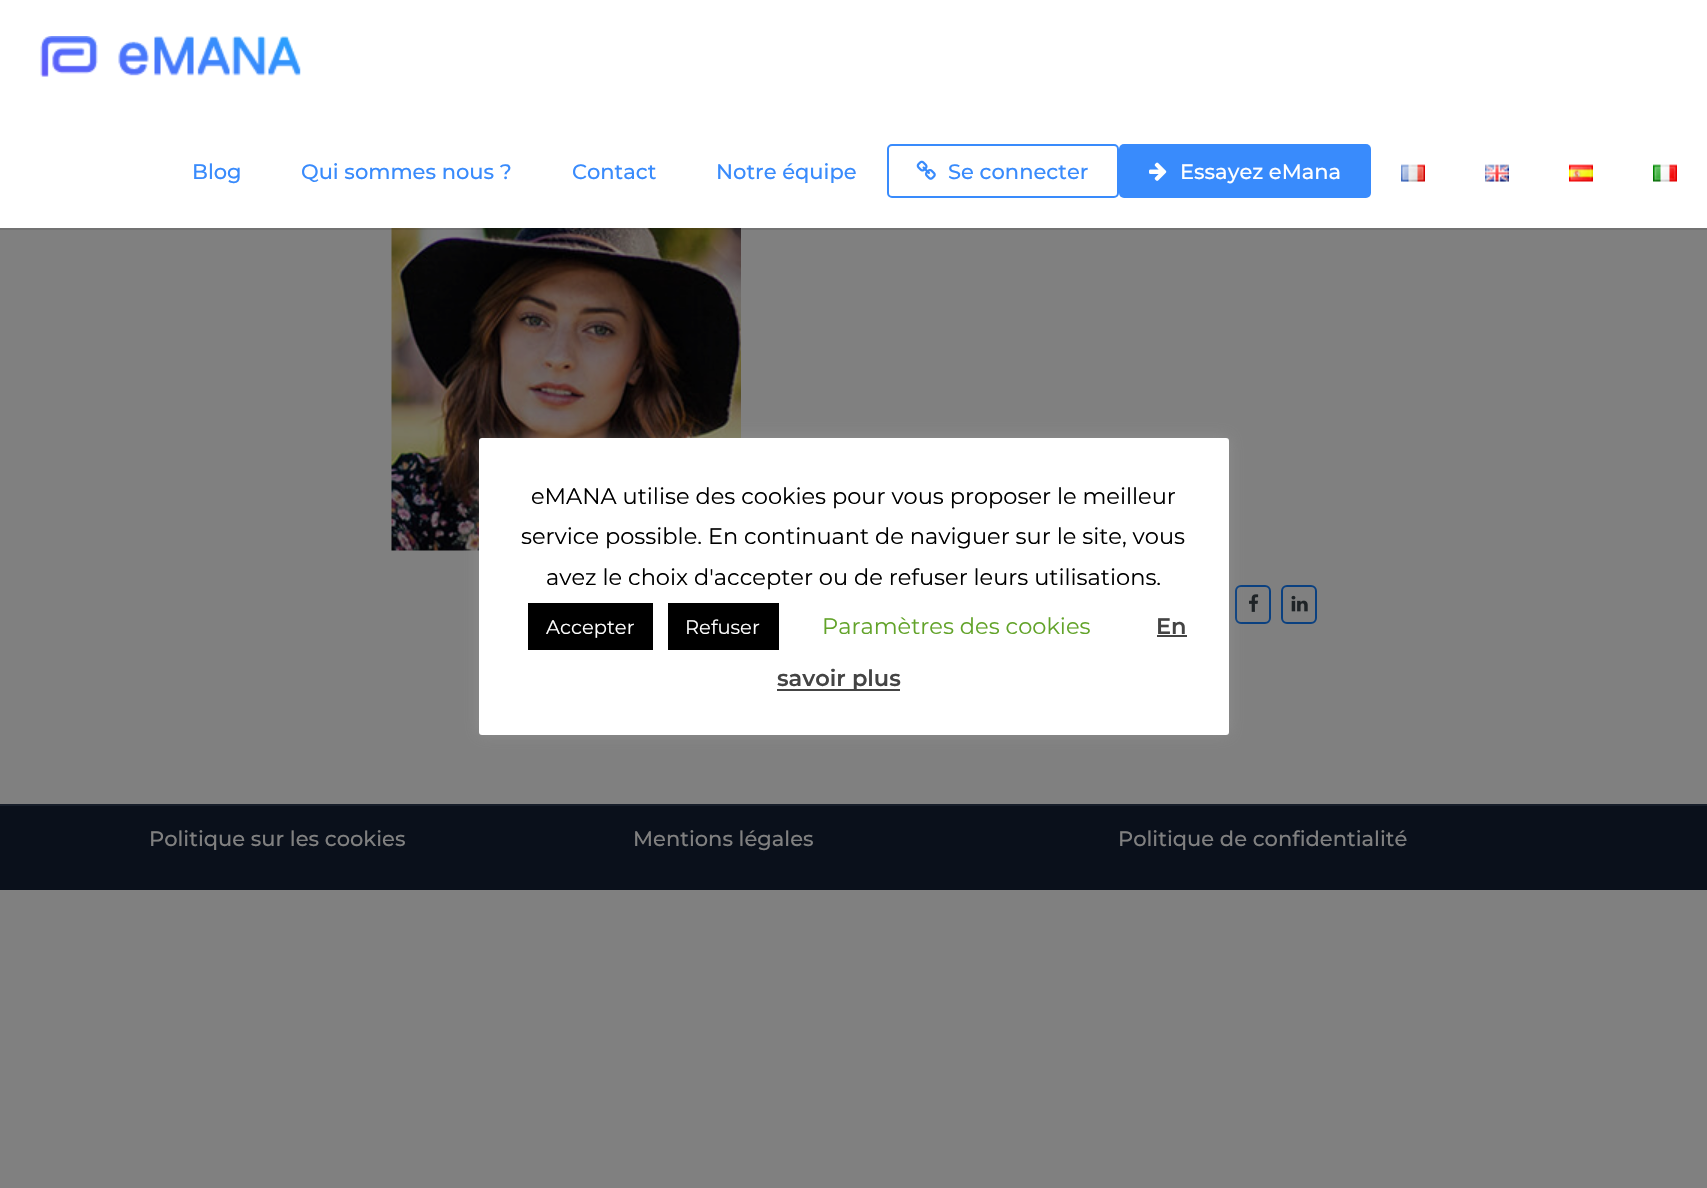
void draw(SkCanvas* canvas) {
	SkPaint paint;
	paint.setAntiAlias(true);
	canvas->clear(0xff808080);
	canvas->drawImageRect(SkImages::DeferredFromEncodedData(SkData::MakeFromFileName("img8.png")), SkRect::MakeXYWH(391, 228, 350, 323), SkSamplingOptions());
	paint.setColor(0x1a000000);
	canvas->drawRect(SkRect::MakeXYWH(0, 228, 1707, 2), paint);
	paint.setColor(0xffffffff);
	canvas->drawRect(SkRect::MakeXYWH(0, 0, 1707, 228), paint);
	canvas->drawImageRect(SkImages::DeferredFromEncodedData(SkData::MakeFromFileName("img1.png")), SkRect::MakeXYWH(40, 36, 261, 41), SkSamplingOptions());
	SkFont f1(fontMgr->matchFamilyStyle("Montserrat", SkFontStyle(500, SkFontStyle::kNormal_Width, SkFontStyle::kUpright_Slant)), 21);
	f1.setSubpixel(true);
	paint.setColor(0xff398bfc);
	canvas->drawString("Blog", 192, 179, f1, paint);
	canvas->drawString("Qui sommes nous ?", 301, 179, f1, paint);
	canvas->drawString("Contact", 572, 179, f1, paint);
	canvas->drawString("Notre équipe", 716, 179, f1, paint);
	paint.setStroke(true);
	paint.setStrokeWidth(2);
	canvas->drawRoundRect(SkRect::MakeXYWH(888, 145, 230, 52), 4, 4, paint);
	canvas->drawImageRect(SkImages::DeferredFromEncodedData(SkData::MakeFromFileName("img2.png")), SkRect::MakeXYWH(916, 160, 20, 20), SkSamplingOptions());
	paint.setStroke(false);
	canvas->drawString("Se connecter", 948, 179, f1, paint);
	canvas->drawRoundRect(SkRect::MakeXYWH(1119, 144, 252, 54), 5, 5, paint);
	canvas->drawImageRect(SkImages::DeferredFromEncodedData(SkData::MakeFromFileName("img3.png")), SkRect::MakeXYWH(1149, 162, 18, 19), SkSamplingOptions());
	paint.setColor(0xffffffff);
	canvas->drawString("Essayez eMana", 1180, 179, f1, paint);
	canvas->drawImageRect(SkImages::DeferredFromEncodedData(SkData::MakeFromFileName("img4.png")), SkRect::MakeXYWH(1401, 164, 24, 18), SkSamplingOptions());
	canvas->drawImageRect(SkImages::DeferredFromEncodedData(SkData::MakeFromFileName("img5.png")), SkRect::MakeXYWH(1485, 164, 24, 18), SkSamplingOptions());
	canvas->drawImageRect(SkImages::DeferredFromEncodedData(SkData::MakeFromFileName("img6.png")), SkRect::MakeXYWH(1569, 164, 24, 18), SkSamplingOptions());
	canvas->drawImageRect(SkImages::DeferredFromEncodedData(SkData::MakeFromFileName("img7.png")), SkRect::MakeXYWH(1653, 164, 24, 18), SkSamplingOptions());
	paint.setStroke(true);
	paint.setColor(0xff0a4080);
	canvas->drawRoundRect(SkRect::MakeXYWH(1236, 586, 34, 37), 5, 5, paint);
	canvas->drawImageRect(SkImages::DeferredFromEncodedData(SkData::MakeFromFileName("img9.png")), SkRect::MakeXYWH(1249, 594, 10, 18), SkSamplingOptions());
	paint.setStroke(false);
	paint.setColor(0x4dacabab);
	paint.setMaskFilter(SkMaskFilter::MakeBlur(kNormal_SkBlurStyle, 7.5));
	canvas->drawRoundRect(SkRect::MakeXYWH(479, 437, 750, 297), 3, 3, paint);
	paint.setMaskFilter(nullptr);
	paint.setColor(0xffffffff);
	canvas->drawRoundRect(SkRect::MakeXYWH(479, 438, 750, 297), 3, 3, paint);
	SkFont f2(fontMgr->matchFamilyStyle("Montserrat", SkFontStyle::Normal()), 22.5);
	f2.setSubpixel(true);
	paint.setColor(0xff000000);
	canvas->drawString("eMANA utilise des cookies pour vous proposer le meilleur", 531, 504, f2, paint);
	canvas->drawString("service possible. En continuant de naviguer sur le site, vous", 521, 544, f2, paint);
	canvas->drawString("avez le choix d'accepter ou de refuser leurs utilisations.", 546, 585, f2, paint);
	canvas->drawRect(SkRect::MakeXYWH(528, 603, 125, 47), paint);
	SkFont f3(fontMgr->matchFamilyStyle("Montserrat", SkFontStyle::Normal()), 19.5);
	f3.setSubpixel(true);
	paint.setColor(0xffffffff);
	canvas->drawString("Accepter", 546, 634, f3, paint);
	paint.setColor(0xff000000);
	canvas->drawRect(SkRect::MakeXYWH(668, 603, 111, 47), paint);
	paint.setColor(0xffffffff);
	canvas->drawString("Refuser", 685, 634, f3, paint);
	paint.setColor(0xff62a329);
	canvas->drawString("Paramètres des cookies", 822, 634, f2, paint);
	SkFont f4(fontMgr->matchFamilyStyle("Montserrat", SkFontStyle(600, SkFontStyle::kNormal_Width, SkFontStyle::kUpright_Slant)), 22.5);
	f4.setSubpixel(true);
	paint.setColor(0xff444444);
	canvas->drawString("En", 1156, 634, f4, paint);
	canvas->drawRect(SkRect::MakeXYWH(1157, 635, 30, 2), paint);
	canvas->drawRect(SkRect::MakeXYWH(777, 689, 123, 2), paint);
	canvas->drawString("savoir plus", 777, 686, f4, paint);
	paint.setStroke(true);
	paint.setColor(0xff0a4080);
	canvas->drawRoundRect(SkRect::MakeXYWH(1282, 586, 34, 37), 5, 5, paint);
	canvas->drawImageRect(SkImages::DeferredFromEncodedData(SkData::MakeFromFileName("img10.png")), SkRect::MakeXYWH(1291, 595, 17, 17), SkSamplingOptions());
	paint.setStroke(false);
	paint.setColor(0xff171e2a);
	canvas->drawRect(SkRect::MakeXYWH(0, 804, 1707, 2), paint);
	paint.setColor(0xff0a101b);
	canvas->drawRect(SkRect::MakeXYWH(0, 806, 1707, 84), paint);
	paint.setColor(0xff808080);
	canvas->drawString("Politique sur les cookies", 149, 846, f1, paint);
	canvas->drawString("Mentions légales", 633, 846, f1, paint);
	canvas->drawString("Politique de confidentialité", 1118, 846, f1, paint);
}
